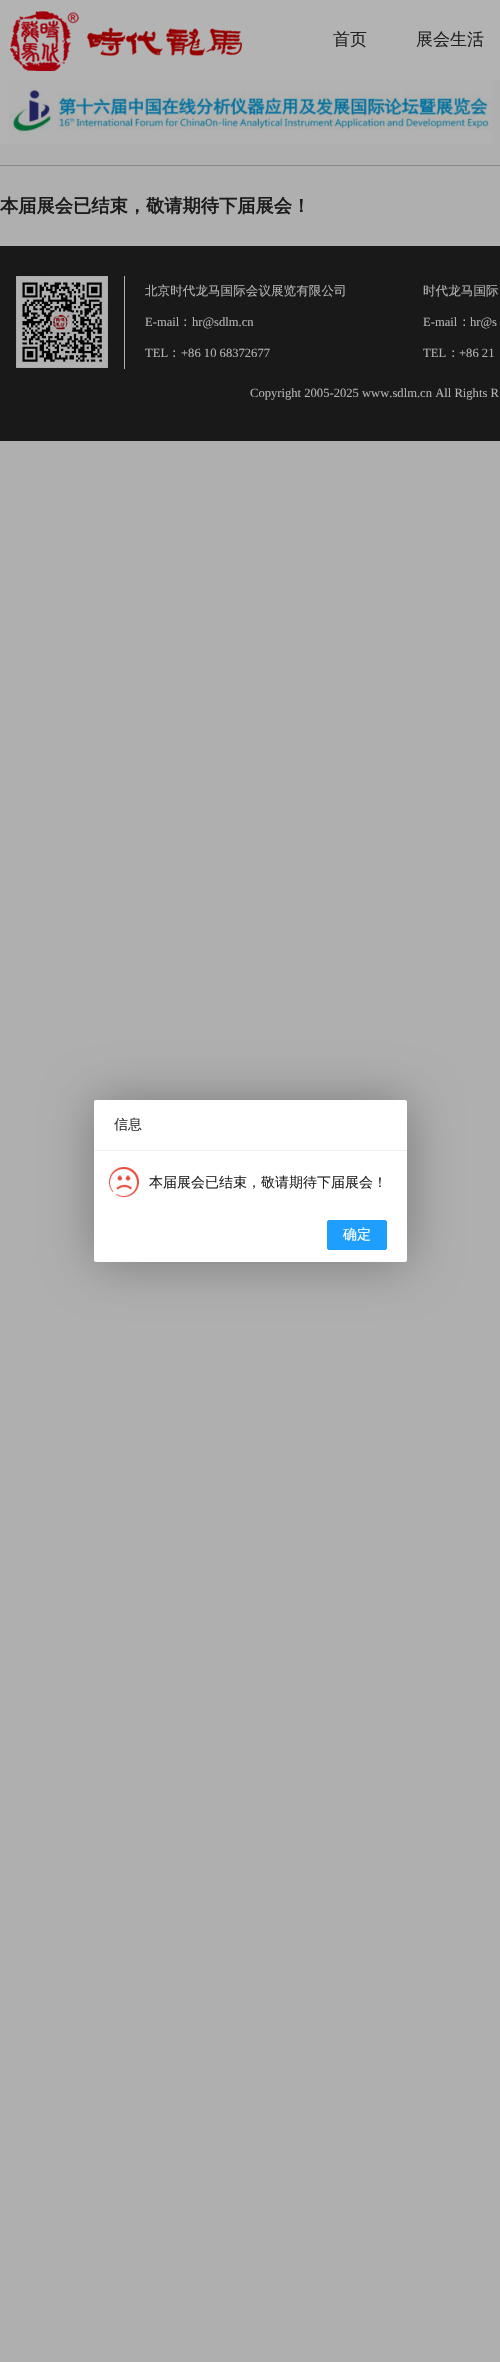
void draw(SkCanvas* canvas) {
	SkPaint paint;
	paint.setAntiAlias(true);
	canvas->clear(0xffafafaf);
	paint.setColor(0xffb3b3b3);
	canvas->drawRect(SkRect::MakeXYWH(0, 0, 500, 80), paint);
	canvas->drawImageRect(SkImages::DeferredFromEncodedData(SkData::MakeFromFileName("img1.png")), SkRect::MakeXYWH(10, 11, 232, 60), SkSamplingOptions());
	SkFont f1(fontMgr->matchFamilyStyle("WenQuanYi Zen Hei", SkFontStyle(500, SkFontStyle::kNormal_Width, SkFontStyle::kUpright_Slant)), 17);
	f1.setSubpixel(true);
	paint.setColor(0xff242424);
	canvas->drawString("首页", 333, 45, f1, paint);
	canvas->drawString("展会生活", 416, 45, f1, paint);
	canvas->drawImageRect(SkImages::DeferredFromEncodedData(SkData::MakeFromFileName("img2.png")), SkRect::MakeXYWH(0, 80, 492, 64), SkSamplingOptions());
	paint.setColor(0xff868686);
	canvas->drawRect(SkRect::MakeXYWH(0, 165, 500, 1), paint);
	SkFont f2(fontMgr->matchFamilyStyle("WenQuanYi Zen Hei", SkFontStyle::Bold()), 18.25);
	f2.setSubpixel(true);
	paint.setColor(0xff1b1b1b);
	canvas->drawString("本届展会已结束，敬请期待下届展会！", 0, 212, f2, paint);
	paint.setColor(0xff191919);
	canvas->drawRect(SkRect::MakeXYWH(0, 246, 500, 195), paint);
	paint.setColor(0xffb3b3b3);
	canvas->drawRect(SkRect::MakeXYWH(124, 276, 1, 93), paint);
	canvas->drawImageRect(SkImages::DeferredFromEncodedData(SkData::MakeFromFileName("img3.png")), SkRect::MakeXYWH(16, 276, 92, 92), SkSamplingOptions());
	SkFont f3(fontMgr->matchFamilyStyle("WenQuanYi Zen Hei", SkFontStyle(500, SkFontStyle::kNormal_Width, SkFontStyle::kUpright_Slant)), 12.6);
	f3.setSubpixel(true);
	canvas->drawString("北京时代龙马国际会议展览有限公司", 145, 295, f3, paint);
	canvas->drawString("时代龙马国际", 423, 295, f3, paint);
	SkFont f4(fontMgr->matchFamilyStyle("Liberation Serif", SkFontStyle::Normal()), 12.6);
	f4.setSubpixel(true);
	canvas->drawString("E-mail", 145, 326, f4, paint);
	canvas->drawString("：", 179, 326, f3, paint);
	canvas->drawString("hr@sdlm.cn", 192, 326, f4, paint);
	canvas->drawString("E-mail", 423, 326, f4, paint);
	canvas->drawString("：", 458, 326, f3, paint);
	canvas->drawString("hr@s", 470, 326, f4, paint);
	canvas->drawString("TEL", 145, 357, f4, paint);
	canvas->drawString("：", 168, 357, f3, paint);
	canvas->drawString("+86 10 68372677", 181, 357, f4, paint);
	canvas->drawString("TEL", 423, 357, f4, paint);
	canvas->drawString("：", 447, 357, f3, paint);
	canvas->drawString("+86 21", 459, 357, f4, paint);
	canvas->drawString("Copyright 2005-2025 www.sdlm.cn All Rights R", 250, 397, f4, paint);
	paint.setColor(0x4d000000);
	paint.setMaskFilter(SkMaskFilter::MakeBlur(kNormal_SkBlurStyle, 25));
	canvas->drawRoundRect(SkRect::MakeXYWH(95, 1101, 313, 162), 2, 2, paint);
	paint.setMaskFilter(nullptr);
	paint.setColor(0xffffffff);
	canvas->drawRoundRect(SkRect::MakeXYWH(94, 1100, 313, 162), 2, 2, paint);
	paint.setColor(0xfff0f0f0);
	canvas->drawRect(SkRect::MakeXYWH(94, 1150, 313, 1), paint);
	SkFont f5(fontMgr->matchFamilyStyle("WenQuanYi Zen Hei", SkFontStyle(500, SkFontStyle::kNormal_Width, SkFontStyle::kUpright_Slant)), 14);
	f5.setSubpixel(true);
	paint.setColor(0xff333333);
	canvas->drawString("信息", 114, 1129, f5, paint);
	canvas->drawImageRect(SkImages::DeferredFromEncodedData(SkData::MakeFromFileName("img4.png")), SkRect::MakeXYWH(109, 1167, 30, 30), SkSamplingOptions());
	paint.setColor(0xff242424);
	canvas->drawString("本届展会已结束，敬请期待下届展会！", 149, 1187, f5, paint);
	paint.setColor(0xff1e9fff);
	canvas->drawRoundRect(SkRect::MakeXYWH(327.5, 1220.5, 59, 29), 1.5, 1.5, paint);
	paint.setStroke(true);
	paint.setStrokeWidth(1);
	canvas->drawRoundRect(SkRect::MakeXYWH(327.5, 1220.5, 59, 29), 1.5, 1.5, paint);
	paint.setStroke(false);
	paint.setColor(0xffffffff);
	canvas->drawString("确定", 343, 1239, f5, paint);
}
